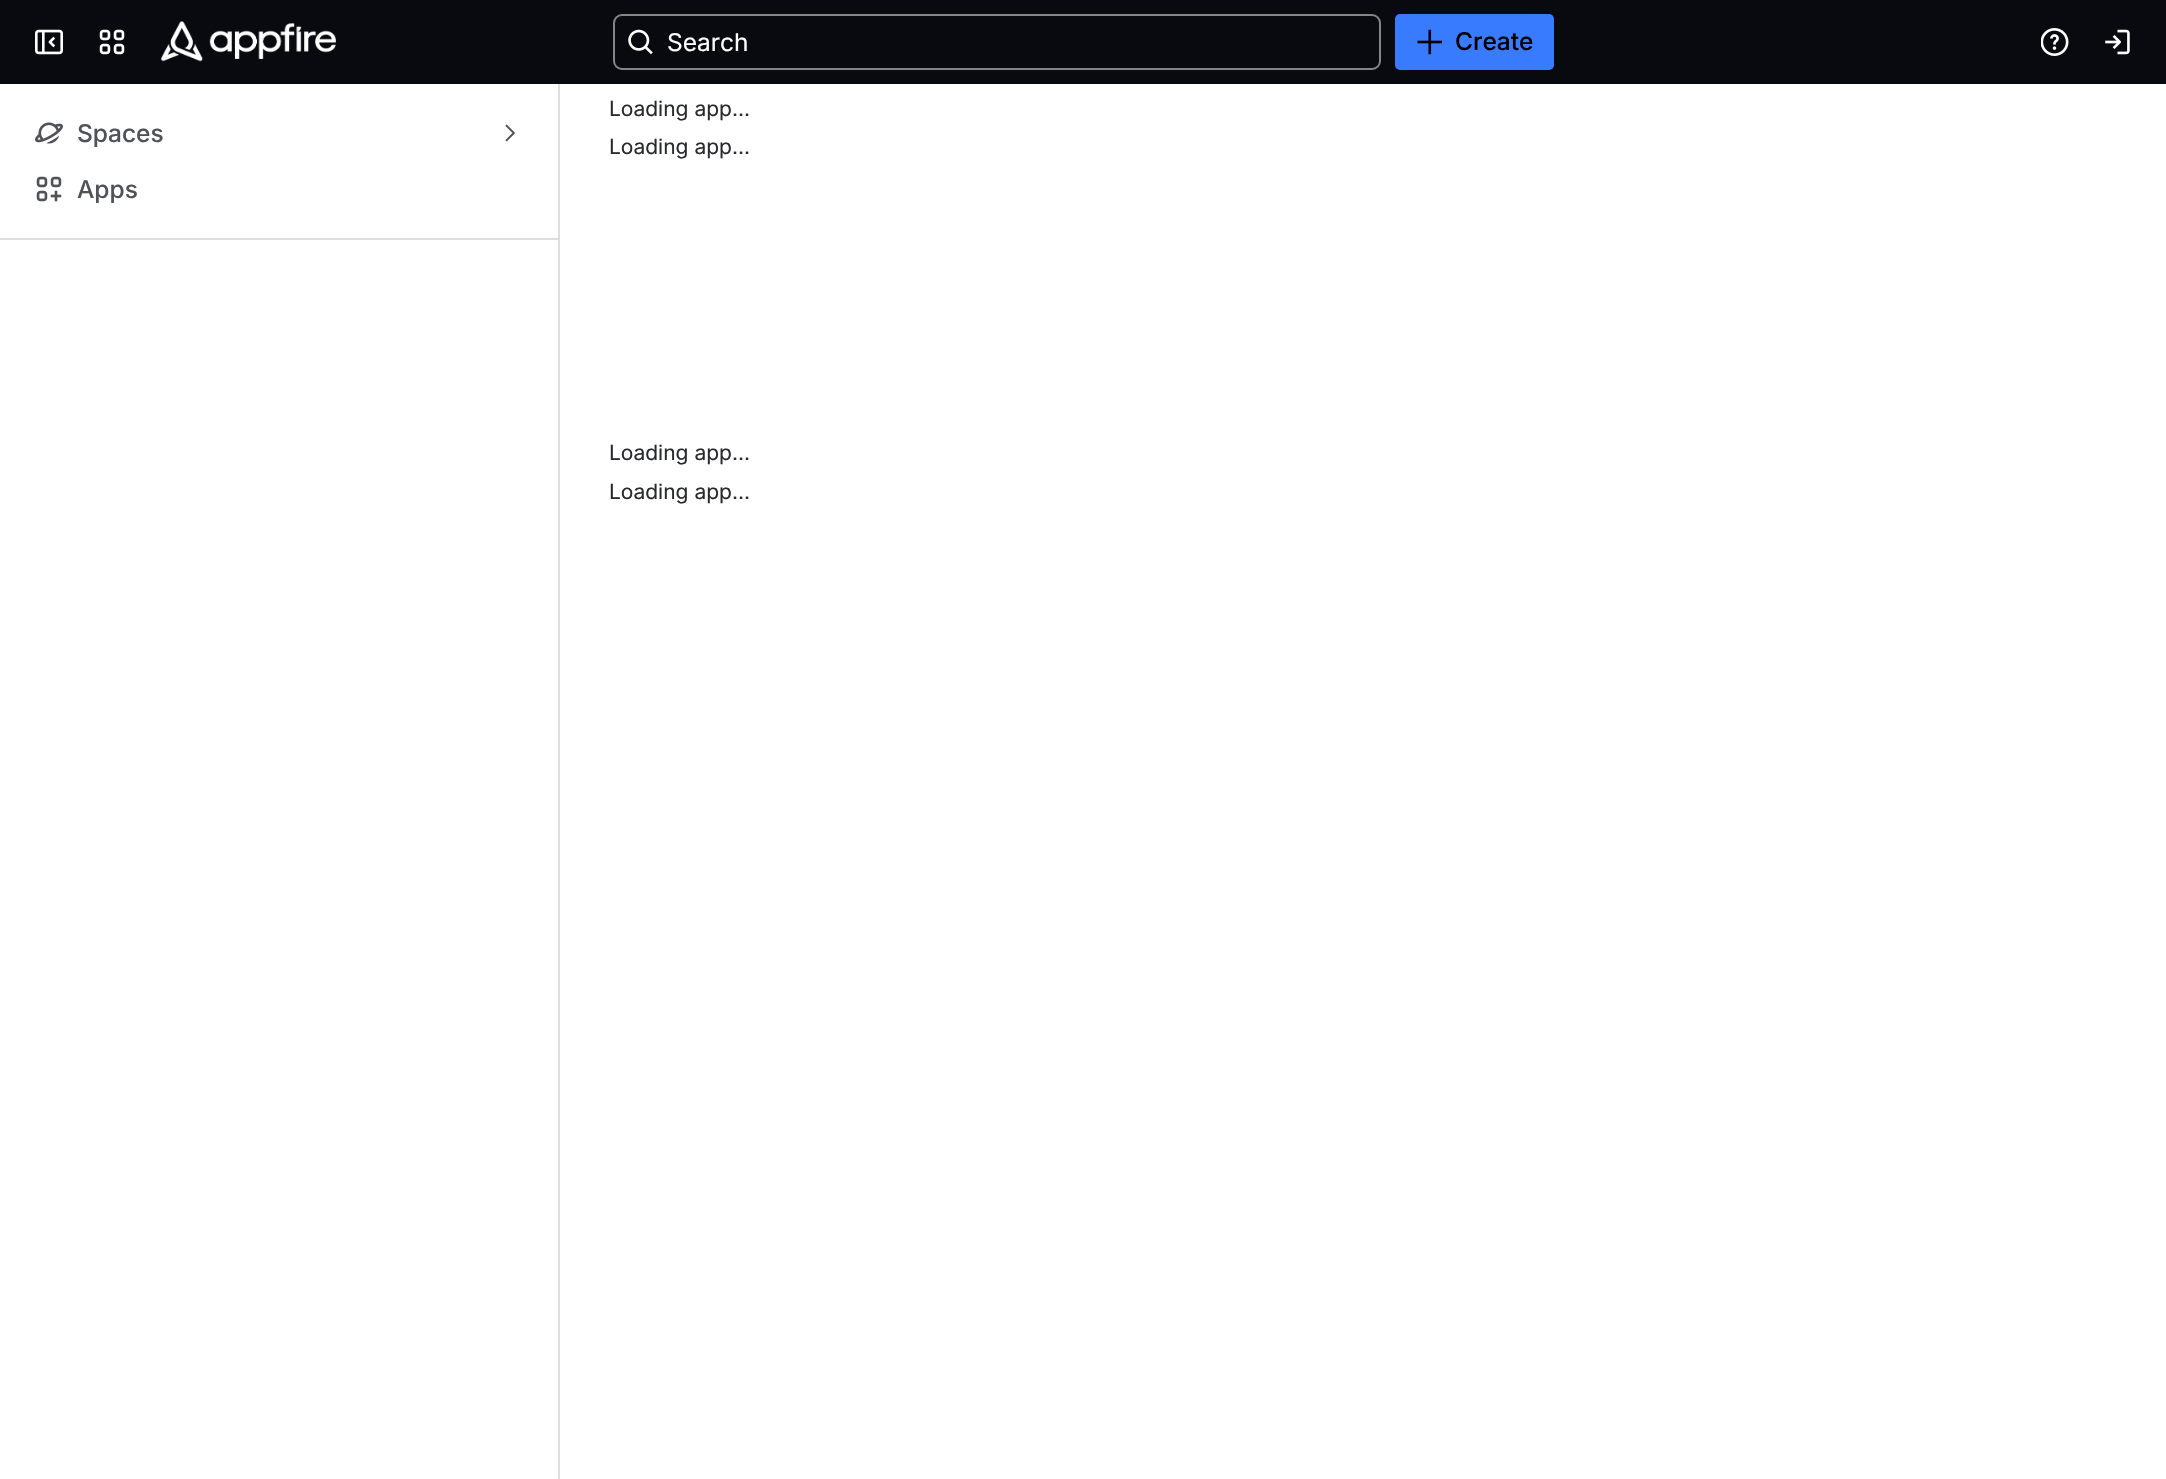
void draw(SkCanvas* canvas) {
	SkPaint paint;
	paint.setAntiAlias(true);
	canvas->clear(0xffffffff);
	paint.setColor(0xff090a0f);
	canvas->drawRect(SkRect::MakeXYWH(0, 0, 2166, 84), paint);
	canvas->drawImageRect(SkImages::DeferredFromEncodedData(SkData::MakeFromFileName("img1.png")), SkRect::MakeXYWH(35, 29, 28, 26), SkSamplingOptions());
	canvas->drawImageRect(SkImages::DeferredFromEncodedData(SkData::MakeFromFileName("img2.png")), SkRect::MakeXYWH(99, 29, 26, 26), SkSamplingOptions());
	canvas->drawImageRect(SkImages::DeferredFromEncodedData(SkData::MakeFromFileName("img3.png")), SkRect::MakeXYWH(161, 21, 175, 41), SkSamplingOptions());
	paint.setStroke(true);
	paint.setStrokeWidth(2);
	paint.setColor(0xff848587);
	canvas->drawRoundRect(SkRect::MakeXYWH(614, 15, 766, 54), 8, 8, paint);
	canvas->drawImageRect(SkImages::DeferredFromEncodedData(SkData::MakeFromFileName("img4.png")), SkRect::MakeXYWH(628, 29, 25, 26), SkSamplingOptions());
	SkFont f1(fontMgr->matchFamilyStyle("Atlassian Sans", SkFontStyle::Normal()), 24.5);
	f1.setSubpixel(true);
	paint.setStroke(false);
	paint.setColor(0xffffffff);
	canvas->drawString("Search", 667, 51, f1, paint);
	paint.setColor(0xff397bff);
	canvas->drawRoundRect(SkRect::MakeXYWH(1395, 14, 159, 56), 5, 5, paint);
	canvas->drawImageRect(SkImages::DeferredFromEncodedData(SkData::MakeFromFileName("img5.png")), SkRect::MakeXYWH(1417, 29, 25, 26), SkSamplingOptions());
	SkFont f2(fontMgr->matchFamilyStyle("Atlassian Sans", SkFontStyle(500, SkFontStyle::kNormal_Width, SkFontStyle::kUpright_Slant)), 24.5);
	f2.setSubpixel(true);
	paint.setColor(0xff000000);
	canvas->drawString("Create", 1455, 50, f2, paint);
	canvas->drawImageRect(SkImages::DeferredFromEncodedData(SkData::MakeFromFileName("img6.png")), SkRect::MakeXYWH(2041, 28, 28, 28), SkSamplingOptions());
	canvas->drawImageRect(SkImages::DeferredFromEncodedData(SkData::MakeFromFileName("img7.png")), SkRect::MakeXYWH(2105, 29, 25, 26), SkSamplingOptions());
	paint.setColor(0xffdddedd);
	canvas->drawRect(SkRect::MakeXYWH(558, 84, 2, 1395), paint);
	canvas->drawImageRect(SkImages::DeferredFromEncodedData(SkData::MakeFromFileName("img8.png")), SkRect::MakeXYWH(35, 122, 28, 22), SkSamplingOptions());
	paint.setColor(0xff505258);
	canvas->drawString("Spaces", 77, 142, f2, paint);
	canvas->drawImageRect(SkImages::DeferredFromEncodedData(SkData::MakeFromFileName("img9.png")), SkRect::MakeXYWH(505, 124, 10, 18), SkSamplingOptions());
	canvas->drawImageRect(SkImages::DeferredFromEncodedData(SkData::MakeFromFileName("img10.png")), SkRect::MakeXYWH(36, 176, 26, 26), SkSamplingOptions());
	canvas->drawString("Apps", 77, 198, f2, paint);
	paint.setColor(0xffdddedd);
	canvas->drawRect(SkRect::MakeXYWH(0, 238, 558, 2), paint);
	SkFont f3(fontMgr->matchFamilyStyle("Atlassian Sans", SkFontStyle::Normal()), 21);
	f3.setSubpixel(true);
	paint.setColor(0xff292a2e);
	canvas->drawString("Loading app...", 609, 116, f3, paint);
	canvas->drawString("Loading app...", 609, 154, f3, paint);
	canvas->drawString("Loading app...", 609, 460, f3, paint);
	canvas->drawString("Loading app...", 609, 499, f3, paint);
}
